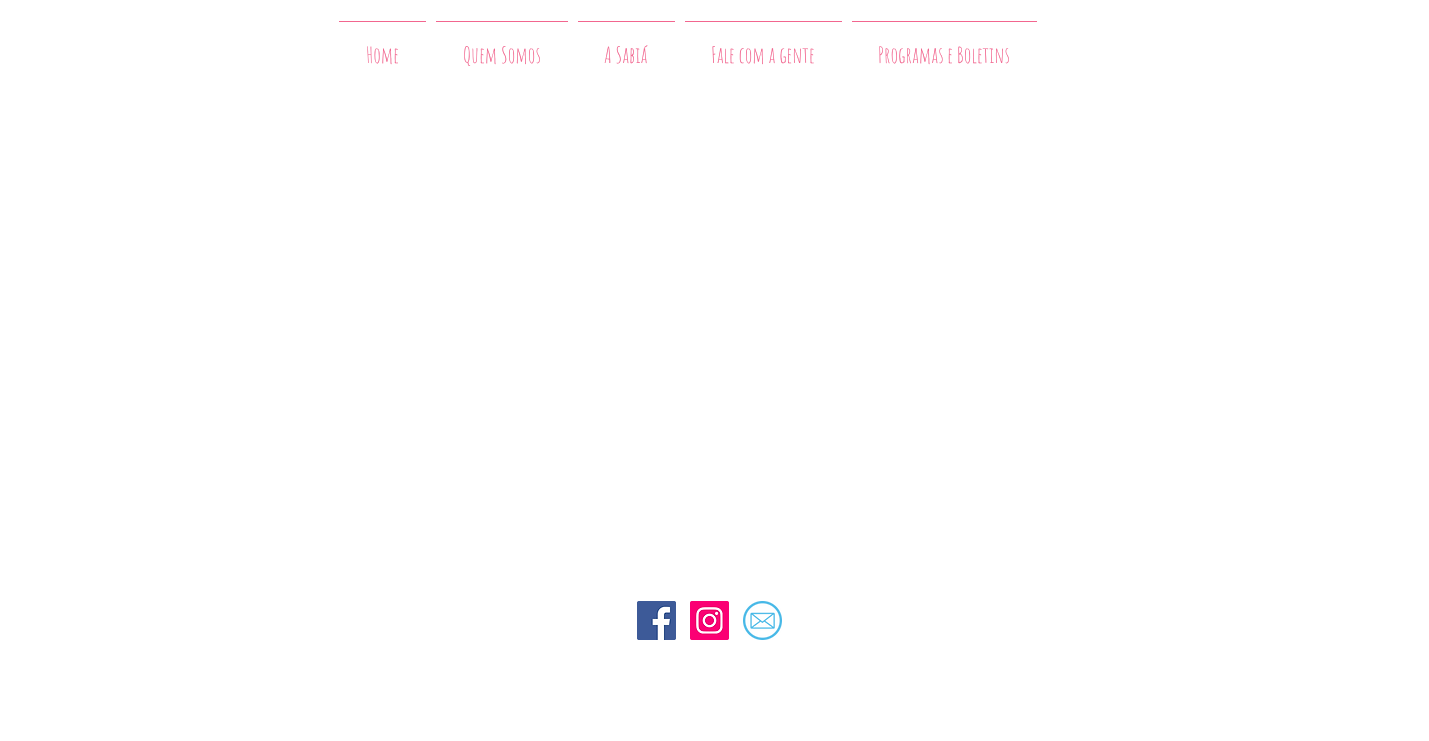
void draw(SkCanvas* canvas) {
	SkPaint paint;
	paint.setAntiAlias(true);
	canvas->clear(0xffffffff);
	paint.setColor(0xfff2668f);
	canvas->drawRect(SkRect::MakeXYWH(339, 21, 87, 1), paint);
	SkFont f1(fontMgr->matchFamilyStyle("Amatic SC", SkFontStyle::Normal()), 22);
	f1.setSubpixel(true);
	canvas->drawString("Home", 366, 63, f1, paint);
	canvas->drawRect(SkRect::MakeXYWH(436, 21, 132, 1), paint);
	canvas->drawString("Quem Somos", 463, 63, f1, paint);
	canvas->drawRect(SkRect::MakeXYWH(578, 21, 97, 1), paint);
	canvas->drawString("A Sabiá", 604, 63, f1, paint);
	canvas->drawRect(SkRect::MakeXYWH(685, 21, 157, 1), paint);
	canvas->drawString("Fale com a gente", 711, 63, f1, paint);
	canvas->drawRect(SkRect::MakeXYWH(852, 21, 185, 1), paint);
	canvas->drawString("Programas e Boletins", 878, 63, f1, paint);
	canvas->drawImageRect(SkImages::DeferredFromEncodedData(SkData::MakeFromFileName("img1.png")), SkRect::MakeXYWH(637, 601, 39, 39), SkSamplingOptions());
	canvas->drawImageRect(SkImages::DeferredFromEncodedData(SkData::MakeFromFileName("img2.png")), SkRect::MakeXYWH(690, 601, 39, 39), SkSamplingOptions());
	canvas->drawImageRect(SkImages::DeferredFromEncodedData(SkData::MakeFromFileName("img3.png")), SkRect::MakeXYWH(743, 601, 39, 39), SkSamplingOptions());
}
